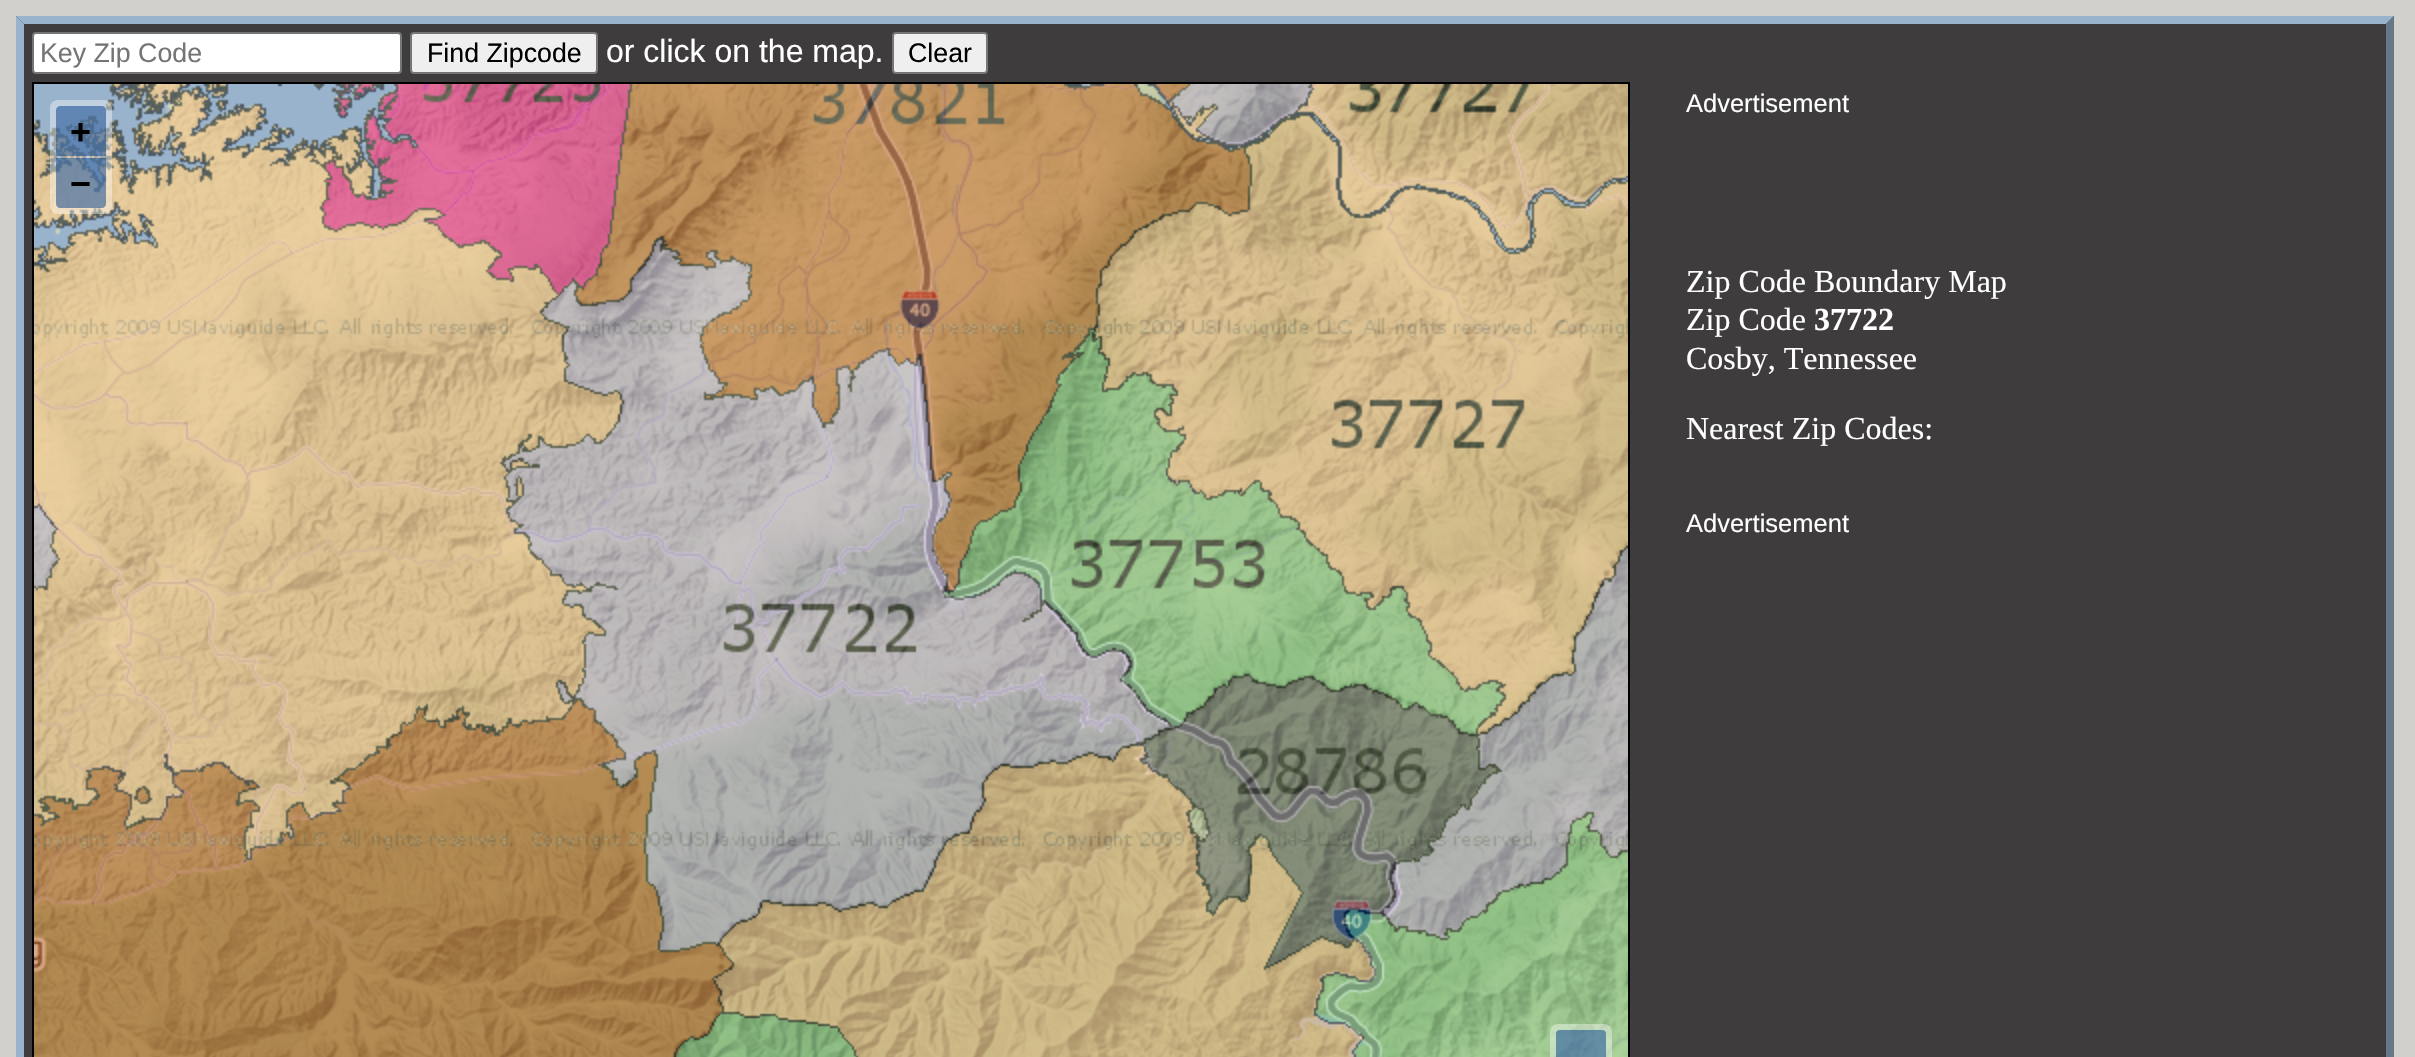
void draw(SkCanvas* canvas) {
	SkPaint paint;
	paint.setAntiAlias(true);
	auto svgPath = [&](const char* data, bool evenOdd = false) {
		SkPath result = *SkParsePath::FromSVGString(data);
		if (evenOdd) result.setFillType(SkPathFillType::kEvenOdd);
		return result;
	};
	canvas->clear(0xffd1d0cd);
	paint.setColor(0xff3e3c3c);
	canvas->drawRect(SkRect::MakeXYWH(16, 16, 2378, 1041), paint);
	paint.setColor(0xff99b3cc);
	canvas->drawPath(svgPath("M16 16H2394L2386 24H24Z"), paint);
	paint.setColor(0xff667788);
	canvas->drawPath(svgPath("M2394 16V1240L2386 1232V24Z"), paint);
	paint.setColor(0xff99b3cc);
	canvas->drawPath(svgPath("M16 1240V16L24 24V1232Z"), paint);
	paint.setColor(0xffffffff);
	canvas->drawRoundRect(SkRect::MakeXYWH(33, 33, 368, 40), 3, 3, paint);
	paint.setStroke(true);
	paint.setStrokeWidth(2);
	paint.setColor(0xff767676);
	canvas->drawRoundRect(SkRect::MakeXYWH(33, 33, 368, 40), 3, 3, paint);
	SkFont f1(fontMgr->matchFamilyStyle("Liberation Sans", SkFontStyle::Normal()), 26.75);
	f1.setSubpixel(true);
	paint.setStroke(false);
	paint.setColor(0xff757575);
	canvas->drawString("Key Zip Code", 40, 62, f1, paint);
	paint.setColor(0xffefefef);
	canvas->drawRoundRect(SkRect::MakeXYWH(411, 33, 186, 40), 3, 3, paint);
	paint.setStroke(true);
	paint.setColor(0xff767676);
	canvas->drawRoundRect(SkRect::MakeXYWH(411, 33, 186, 40), 3, 3, paint);
	paint.setStroke(false);
	paint.setColor(0xff000000);
	canvas->drawString("Find Zipcode", 427, 62, f1, paint);
	SkFont f2(fontMgr->matchFamilyStyle("Liberation Sans", SkFontStyle::Normal()), 32);
	f2.setSubpixel(true);
	paint.setColor(0xffffffff);
	canvas->drawString("or click on the map.", 606, 62, f2, paint);
	paint.setColor(0xffefefef);
	canvas->drawRoundRect(SkRect::MakeXYWH(893, 33, 94, 40), 3, 3, paint);
	paint.setStroke(true);
	paint.setColor(0xff767676);
	canvas->drawRoundRect(SkRect::MakeXYWH(893, 33, 94, 40), 3, 3, paint);
	paint.setStroke(false);
	paint.setColor(0xff000000);
	canvas->drawString("Clear", 908, 62, f1, paint);
	paint.setStroke(true);
	canvas->drawRect(SkRect::MakeXYWH(33, 83, 1596, 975), paint);
	canvas->drawImageRect(SkImages::DeferredFromEncodedData(SkData::MakeFromFileName("img1.png")), SkRect::MakeXYWH(34, 84, 1594, 973), SkSamplingOptions());
	paint.setStroke(false);
	paint.setColor(0x66ffffff);
	canvas->drawRoundRect(SkRect::MakeXYWH(50, 100, 62, 114), 8, 8, paint);
	paint.setColor(0x80003c88);
	canvas->drawPath(svgPath("M60 106H102C104 106 106 108 106 110V156H56V110C56 108 58 106 60 106Z"), paint);
	SkFont f3(fontMgr->matchFamilyStyle("Liberation Sans", SkFontStyle::Bold()), 36);
	f3.setSubpixel(true);
	paint.setColor(0xff000000);
	canvas->drawString("+", 70, 144, f3, paint);
	paint.setColor(0x80003c88);
	canvas->drawPath(svgPath("M56 158H106V204C106 206 104 208 102 208H60C58 208 56 206 56 204Z"), paint);
	paint.setColor(0xff000000);
	canvas->drawString("−", 70, 196, f3, paint);
	paint.setColor(0x66ffffff);
	canvas->drawRoundRect(SkRect::MakeXYWH(1550, 1024, 62, 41), 8, 8, paint);
	paint.setColor(0x80003c88);
	canvas->drawRoundRect(SkRect::MakeXYWH(1556, 1030, 50, 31), 4, 4, paint);
	SkFont f4(fontMgr->matchFamilyStyle("Liberation Sans", SkFontStyle::Normal()), 25.5);
	f4.setSubpixel(true);
	paint.setColor(0xffffffff);
	canvas->drawString("Advertisement", 1686, 112, f4, paint);
	SkFont f5(fontMgr->matchFamilyStyle("Liberation Serif", SkFontStyle::Normal()), 32);
	f5.setSubpixel(true);
	canvas->drawString("Zip Code Boundary Map", 1686, 292, f5, paint);
	canvas->drawString("Zip Code", 1686, 330, f5, paint);
	SkFont f6(fontMgr->matchFamilyStyle("Liberation Serif", SkFontStyle::Bold()), 32);
	f6.setSubpixel(true);
	canvas->drawString("37722", 1814, 330, f6, paint);
	canvas->drawString("Cosby, Tennessee", 1686, 369, f5, paint);
	canvas->drawString("Nearest Zip Codes:", 1686, 439, f5, paint);
	canvas->drawString("Advertisement", 1686, 532, f4, paint);
}
